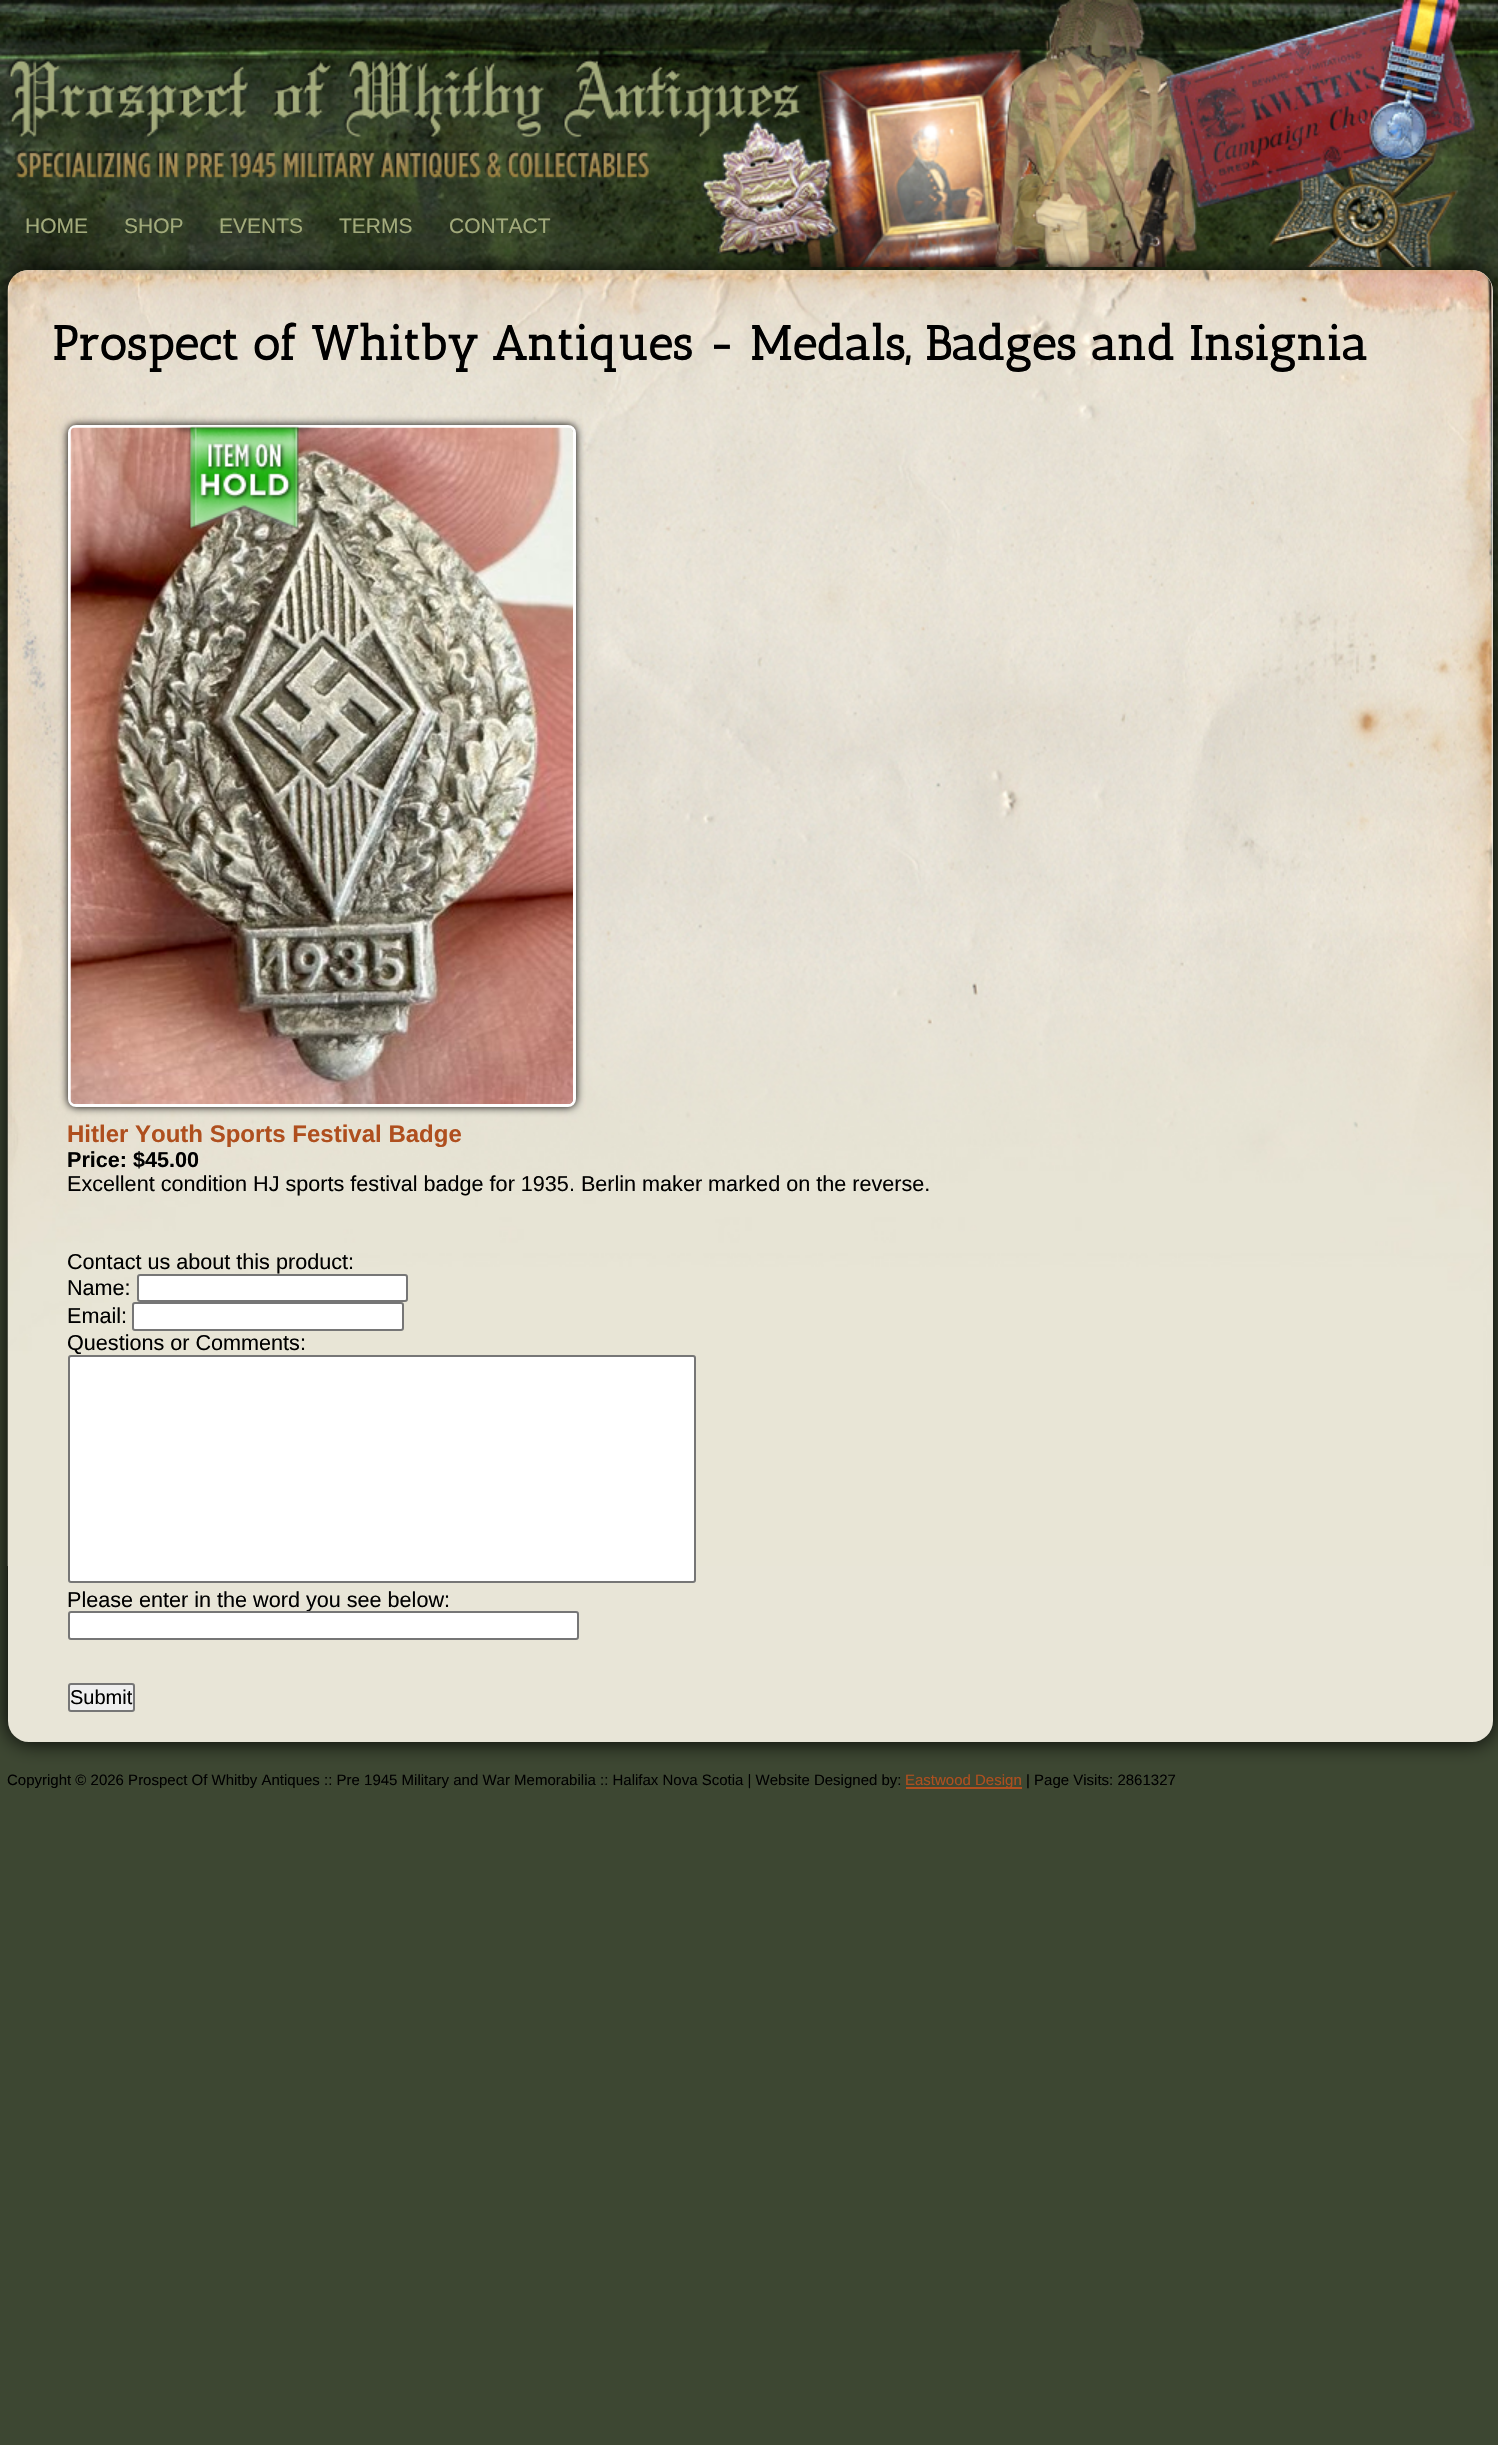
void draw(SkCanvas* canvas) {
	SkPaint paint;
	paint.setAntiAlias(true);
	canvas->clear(0xff3d4732);
	canvas->drawImageRect(SkImages::DeferredFromEncodedData(SkData::MakeFromFileName("img1.png")), SkRect::MakeXYWH(0, 0, 1498, 758), SkSamplingOptions());
	canvas->drawImageRect(SkImages::DeferredFromEncodedData(SkData::MakeFromFileName("img2.png")), SkRect::MakeXYWH(7, 0, 1468, 267), SkSamplingOptions());
	SkFont f1(fontMgr->matchFamilyStyle("Liberation Sans", SkFontStyle::Normal()), 21);
	f1.setSubpixel(true);
	paint.setColor(0xffa2aa7b);
	canvas->drawString("HOME", 25, 233, f1, paint);
	canvas->drawString("SHOP", 124, 233, f1, paint);
	canvas->drawString("EVENTS", 219, 233, f1, paint);
	canvas->drawString("TERMS", 339, 233, f1, paint);
	canvas->drawString("CONTACT", 449, 233, f1, paint);
	paint.setColor(0xff000000);
	paint.setMaskFilter(SkMaskFilter::MakeBlur(kNormal_SkBlurStyle, 11));
	canvas->drawRoundRect(SkRect::MakeXYWH(8, 270, 1485, 1472), 21, 21, paint);
	paint.setMaskFilter(nullptr);
	paint.setColor(0xffe8e5d7);
	canvas->drawRoundRect(SkRect::MakeXYWH(8, 270, 1485, 1472), 21, 21, paint);
	canvas->drawImageRect(SkImages::DeferredFromEncodedData(SkData::MakeFromFileName("img3.png")), SkRect::MakeXYWH(7, 270, 1486, 1296), SkSamplingOptions());
	SkFont f2(fontMgr->matchFamilyStyle("Antic Slab", SkFontStyle::Bold()), 48);
	f2.setSubpixel(true);
	paint.setColor(0xff000000);
	canvas->drawString("Prospect of Whitby Antiques - Medals, Badges and Insignia", 52, 360, f2, paint);
	paint.setMaskFilter(SkMaskFilter::MakeBlur(kNormal_SkBlurStyle, 4));
	canvas->drawRoundRect(SkRect::MakeXYWH(68, 425, 508, 682), 8, 8, paint);
	paint.setMaskFilter(nullptr);
	paint.setStroke(true);
	paint.setStrokeWidth(3);
	paint.setColor(0xffffffff);
	canvas->drawRoundRect(SkRect::MakeXYWH(69.5, 426.5, 505, 679), 6.5, 6.5, paint);
	canvas->drawImageRect(SkImages::DeferredFromEncodedData(SkData::MakeFromFileName("img5.png")), SkRect::MakeXYWH(70, 427, 503, 677), SkSamplingOptions());
	canvas->drawImageRect(SkImages::DeferredFromEncodedData(SkData::MakeFromFileName("img4.png")), SkRect::MakeXYWH(168, 426, 154, 105), SkSamplingOptions());
	SkFont f3(fontMgr->matchFamilyStyle("Liberation Sans", SkFontStyle::Bold()), 24);
	f3.setSubpixel(true);
	paint.setStroke(false);
	paint.setColor(0xffaf4f1e);
	canvas->drawString("Hitler Youth Sports Festival Badge", 67, 1142, f3, paint);
	SkFont f4(fontMgr->matchFamilyStyle("Liberation Sans", SkFontStyle::Bold()), 21.6);
	f4.setSubpixel(true);
	paint.setColor(0xff000000);
	canvas->drawString("Price: $45.00", 67, 1167, f4, paint);
	SkFont f5(fontMgr->matchFamilyStyle("Liberation Sans", SkFontStyle::Normal()), 21.6);
	f5.setSubpixel(true);
	canvas->drawString("Excellent condition HJ sports festival badge for 1935. Berlin maker marked on the reverse.", 67, 1191, f5, paint);
	canvas->drawString("Contact us about this product:", 67, 1269, f5, paint);
	canvas->drawString("Name:", 67, 1295, f5, paint);
	paint.setColor(0xffffffff);
	canvas->drawRoundRect(SkRect::MakeXYWH(138, 1275, 269, 26), 2, 2, paint);
	paint.setStroke(true);
	paint.setStrokeWidth(2);
	paint.setColor(0xff767676);
	canvas->drawRoundRect(SkRect::MakeXYWH(138, 1275, 269, 26), 2, 2, paint);
	paint.setStroke(false);
	paint.setColor(0xff000000);
	canvas->drawString("Email:", 67, 1323, f5, paint);
	paint.setColor(0xffffffff);
	canvas->drawRoundRect(SkRect::MakeXYWH(133, 1303, 270, 27), 2, 2, paint);
	paint.setStroke(true);
	paint.setColor(0xff767676);
	canvas->drawRoundRect(SkRect::MakeXYWH(133, 1303, 270, 27), 2, 2, paint);
	paint.setStroke(false);
	paint.setColor(0xff000000);
	canvas->drawString("Questions or Comments:", 67, 1350, f5, paint);
	paint.setColor(0xffffffff);
	canvas->drawRoundRect(SkRect::MakeXYWH(69, 1356, 626, 226), 2, 2, paint);
	paint.setStroke(true);
	paint.setColor(0xff767676);
	canvas->drawRoundRect(SkRect::MakeXYWH(69, 1356, 626, 226), 2, 2, paint);
	paint.setStroke(false);
	paint.setColor(0xff000000);
	canvas->drawString("Please enter in the word you see below:", 67, 1607, f5, paint);
	paint.setColor(0xffffffff);
	canvas->drawRoundRect(SkRect::MakeXYWH(69, 1612, 509, 27), 2, 2, paint);
	paint.setStroke(true);
	paint.setColor(0xff767676);
	canvas->drawRoundRect(SkRect::MakeXYWH(69, 1612, 509, 27), 2, 2, paint);
	paint.setStroke(false);
	paint.setColor(0xffefefef);
	canvas->drawRoundRect(SkRect::MakeXYWH(69, 1684, 65, 27), 2, 2, paint);
	paint.setStroke(true);
	paint.setColor(0xff767676);
	canvas->drawRoundRect(SkRect::MakeXYWH(69, 1684, 65, 27), 2, 2, paint);
	SkFont f6(fontMgr->matchFamilyStyle("Liberation Sans", SkFontStyle::Normal()), 20);
	f6.setSubpixel(true);
	paint.setStroke(false);
	paint.setColor(0xff000000);
	canvas->drawString("Submit", 70, 1704, f6, paint);
	SkFont f7(fontMgr->matchFamilyStyle("Liberation Sans", SkFontStyle::Normal()), 15);
	f7.setSubpixel(true);
	canvas->drawString("Copyright © 2026 Prospect Of Whitby Antiques :: Pre 1945 Military and War Memorabilia :: Halifax Nova Scotia | Website Designed by:", 7, 1785, f7, paint);
	paint.setColor(0xffaf4f1e);
	canvas->drawRect(SkRect::MakeXYWH(906, 1787, 116, 2), paint);
	canvas->drawString("Eastwood Design", 905, 1785, f7, paint);
	paint.setColor(0xff000000);
	canvas->drawString("| Page Visits: 2861327", 1026, 1785, f7, paint);
}
